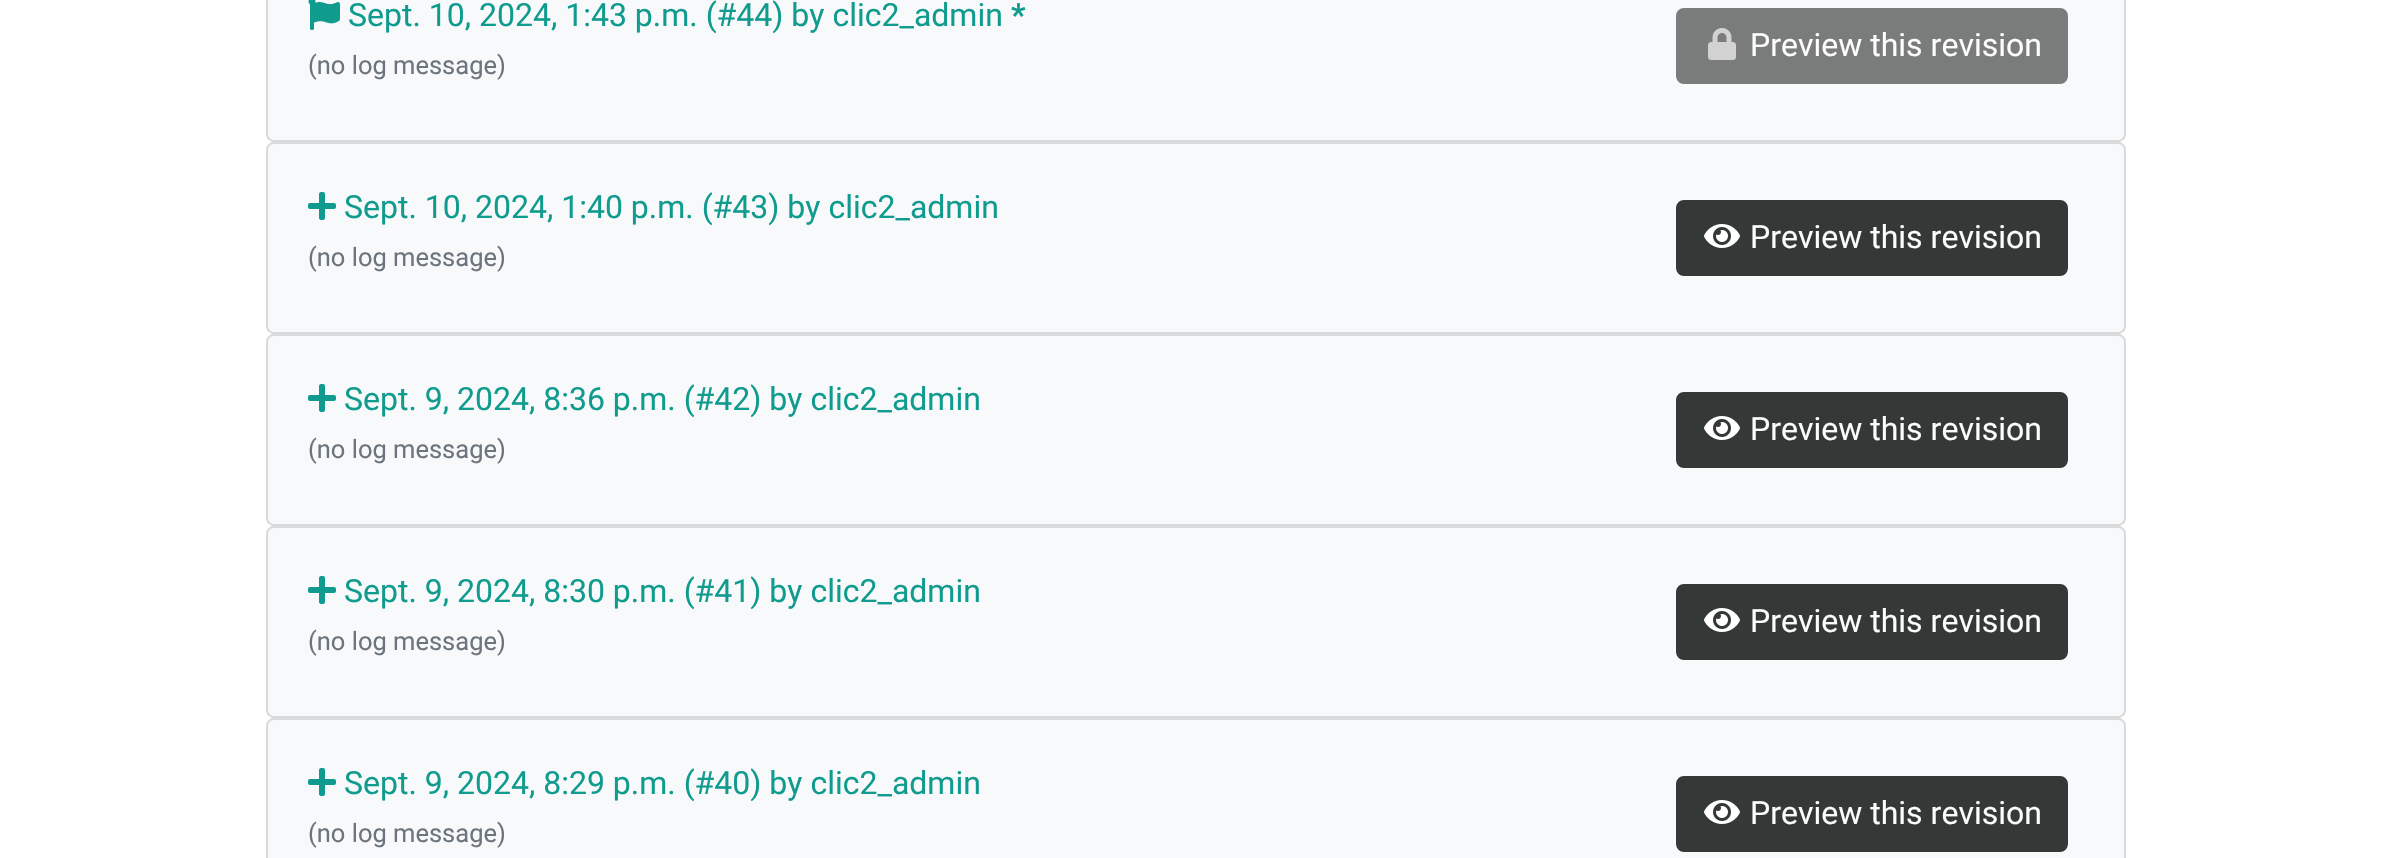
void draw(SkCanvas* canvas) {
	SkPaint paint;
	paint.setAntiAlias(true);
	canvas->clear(0xffffffff);
	paint.setColor(0xfff8f9fa);
	canvas->drawRoundRect(SkRect::MakeXYWH(266, -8, 1860, 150), 8, 8, paint);
	paint.setStroke(true);
	paint.setStrokeWidth(2);
	paint.setColor(0x1f000000);
	canvas->drawRoundRect(SkRect::MakeXYWH(267, -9, 1858, 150), 7, 7, paint);
	canvas->drawImageRect(SkImages::DeferredFromEncodedData(SkData::MakeFromFileName("img1.png")), SkRect::MakeXYWH(308, 0, 32, 30), SkSamplingOptions());
	SkFont f1(fontMgr->matchFamilyStyle("Roboto", SkFontStyle::Normal()), 32);
	f1.setSubpixel(true);
	paint.setStroke(false);
	paint.setColor(0xff0f9b8e);
	canvas->drawString("Sept. 10, 2024, 1:43 p.m. (#44) by clic2_admin", 348, 26, f1, paint);
	SkFont f2(fontMgr->matchFamilyStyle("Roboto", SkFontStyle::Bold()), 32);
	f2.setSubpixel(true);
	canvas->drawString("*", 1011, 26, f2, paint);
	SkFont f3(fontMgr->matchFamilyStyle("Roboto", SkFontStyle::Normal()), 25.5);
	f3.setSubpixel(true);
	paint.setColor(0xff6c757d);
	canvas->drawString("(no log message)", 308, 74, f3, paint);
	paint.setColor(0xff797c7b);
	canvas->drawRoundRect(SkRect::MakeXYWH(1677, 9, 390, 74), 7, 7, paint);
	paint.setStroke(true);
	canvas->drawRoundRect(SkRect::MakeXYWH(1677, 9, 390, 74), 7, 7, paint);
	canvas->drawImageRect(SkImages::DeferredFromEncodedData(SkData::MakeFromFileName("img2.png")), SkRect::MakeXYWH(1708, 28, 28, 32), SkSamplingOptions());
	paint.setStroke(false);
	paint.setColor(0xfffdfdfd);
	canvas->drawString("Preview this revision", 1750, 56, f1, paint);
	paint.setColor(0xfff8f9fa);
	canvas->drawRoundRect(SkRect::MakeXYWH(266, 142, 1860, 192), 8, 8, paint);
	paint.setStroke(true);
	paint.setColor(0x1f000000);
	canvas->drawRoundRect(SkRect::MakeXYWH(267, 143, 1858, 190), 7, 7, paint);
	canvas->drawImageRect(SkImages::DeferredFromEncodedData(SkData::MakeFromFileName("img3.png")), SkRect::MakeXYWH(308, 192, 28, 28), SkSamplingOptions());
	paint.setStroke(false);
	paint.setColor(0xff0f9b8e);
	canvas->drawString("Sept. 10, 2024, 1:40 p.m. (#43) by clic2_admin", 344, 218, f1, paint);
	paint.setColor(0xff6c757d);
	canvas->drawString("(no log message)", 308, 266, f3, paint);
	paint.setColor(0xff343837);
	canvas->drawRoundRect(SkRect::MakeXYWH(1677, 201, 390, 74), 7, 7, paint);
	paint.setStroke(true);
	canvas->drawRoundRect(SkRect::MakeXYWH(1677, 201, 390, 74), 7, 7, paint);
	canvas->drawImageRect(SkImages::DeferredFromEncodedData(SkData::MakeFromFileName("img4.png")), SkRect::MakeXYWH(1704, 224, 36, 24), SkSamplingOptions());
	paint.setStroke(false);
	paint.setColor(0xfffdfdfd);
	canvas->drawString("Preview this revision", 1750, 248, f1, paint);
	paint.setColor(0xfff8f9fa);
	canvas->drawRoundRect(SkRect::MakeXYWH(266, 334, 1860, 192), 8, 8, paint);
	paint.setStroke(true);
	paint.setColor(0x1f000000);
	canvas->drawRoundRect(SkRect::MakeXYWH(267, 335, 1858, 190), 7, 7, paint);
	canvas->drawImageRect(SkImages::DeferredFromEncodedData(SkData::MakeFromFileName("img3.png")), SkRect::MakeXYWH(308, 384, 28, 28), SkSamplingOptions());
	paint.setStroke(false);
	paint.setColor(0xff0f9b8e);
	canvas->drawString("Sept. 9, 2024, 8:36 p.m. (#42) by clic2_admin", 344, 410, f1, paint);
	paint.setColor(0xff6c757d);
	canvas->drawString("(no log message)", 308, 458, f3, paint);
	paint.setColor(0xff343837);
	canvas->drawRoundRect(SkRect::MakeXYWH(1677, 393, 390, 74), 7, 7, paint);
	paint.setStroke(true);
	canvas->drawRoundRect(SkRect::MakeXYWH(1677, 393, 390, 74), 7, 7, paint);
	canvas->drawImageRect(SkImages::DeferredFromEncodedData(SkData::MakeFromFileName("img4.png")), SkRect::MakeXYWH(1704, 416, 36, 24), SkSamplingOptions());
	paint.setStroke(false);
	paint.setColor(0xfffdfdfd);
	canvas->drawString("Preview this revision", 1750, 440, f1, paint);
	paint.setColor(0xfff8f9fa);
	canvas->drawRoundRect(SkRect::MakeXYWH(266, 526, 1860, 192), 8, 8, paint);
	paint.setStroke(true);
	paint.setColor(0x1f000000);
	canvas->drawRoundRect(SkRect::MakeXYWH(267, 527, 1858, 190), 7, 7, paint);
	canvas->drawImageRect(SkImages::DeferredFromEncodedData(SkData::MakeFromFileName("img3.png")), SkRect::MakeXYWH(308, 576, 28, 28), SkSamplingOptions());
	paint.setStroke(false);
	paint.setColor(0xff0f9b8e);
	canvas->drawString("Sept. 9, 2024, 8:30 p.m. (#41) by clic2_admin", 344, 602, f1, paint);
	paint.setColor(0xff6c757d);
	canvas->drawString("(no log message)", 308, 650, f3, paint);
	paint.setColor(0xff343837);
	canvas->drawRoundRect(SkRect::MakeXYWH(1677, 585, 390, 74), 7, 7, paint);
	paint.setStroke(true);
	canvas->drawRoundRect(SkRect::MakeXYWH(1677, 585, 390, 74), 7, 7, paint);
	canvas->drawImageRect(SkImages::DeferredFromEncodedData(SkData::MakeFromFileName("img4.png")), SkRect::MakeXYWH(1704, 608, 36, 24), SkSamplingOptions());
	paint.setStroke(false);
	paint.setColor(0xfffdfdfd);
	canvas->drawString("Preview this revision", 1750, 632, f1, paint);
	paint.setColor(0xfff8f9fa);
	canvas->drawRoundRect(SkRect::MakeXYWH(266, 718, 1860, 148), 8, 8, paint);
	paint.setStroke(true);
	paint.setColor(0x1f000000);
	canvas->drawRoundRect(SkRect::MakeXYWH(267, 719, 1858, 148), 7, 7, paint);
	canvas->drawImageRect(SkImages::DeferredFromEncodedData(SkData::MakeFromFileName("img3.png")), SkRect::MakeXYWH(308, 768, 28, 28), SkSamplingOptions());
	paint.setStroke(false);
	paint.setColor(0xff0f9b8e);
	canvas->drawString("Sept. 9, 2024, 8:29 p.m. (#40) by clic2_admin", 344, 794, f1, paint);
	paint.setColor(0xff6c757d);
	canvas->drawString("(no log message)", 308, 842, f3, paint);
	paint.setColor(0xff343837);
	canvas->drawRoundRect(SkRect::MakeXYWH(1677, 777, 390, 74), 7, 7, paint);
	paint.setStroke(true);
	canvas->drawRoundRect(SkRect::MakeXYWH(1677, 777, 390, 74), 7, 7, paint);
	canvas->drawImageRect(SkImages::DeferredFromEncodedData(SkData::MakeFromFileName("img4.png")), SkRect::MakeXYWH(1704, 800, 36, 24), SkSamplingOptions());
	paint.setStroke(false);
	paint.setColor(0xfffdfdfd);
	canvas->drawString("Preview this revision", 1750, 824, f1, paint);
}
